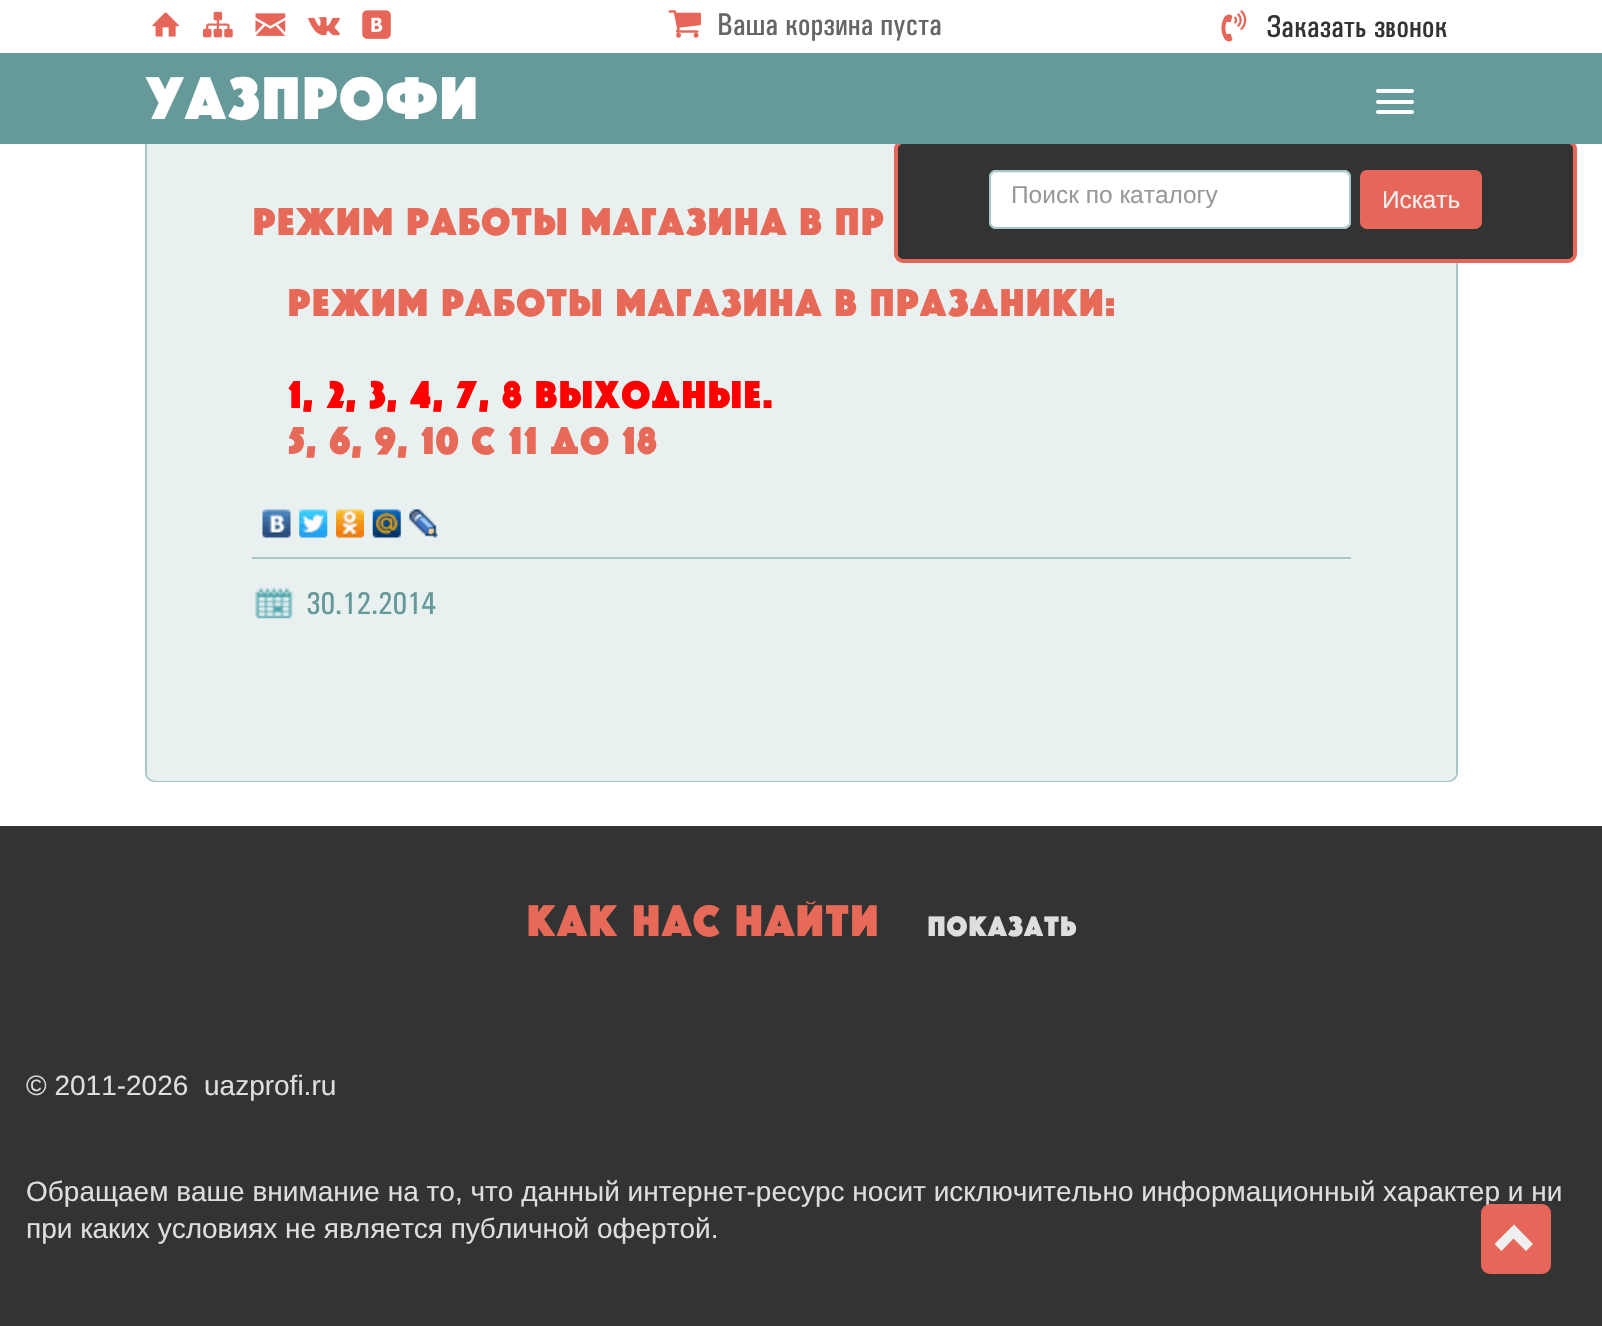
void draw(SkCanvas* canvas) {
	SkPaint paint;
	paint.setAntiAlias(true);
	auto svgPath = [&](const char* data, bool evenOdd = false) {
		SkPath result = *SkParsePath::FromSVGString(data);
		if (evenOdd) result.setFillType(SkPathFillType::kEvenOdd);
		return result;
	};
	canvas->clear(0xffffffff);
	canvas->drawImageRect(SkImages::DeferredFromEncodedData(SkData::MakeFromFileName("img1.png")), SkRect::MakeXYWH(152, 12, 27, 25), SkSamplingOptions());
	canvas->drawImageRect(SkImages::DeferredFromEncodedData(SkData::MakeFromFileName("img2.png")), SkRect::MakeXYWH(203, 11, 30, 27), SkSamplingOptions());
	canvas->drawImageRect(SkImages::DeferredFromEncodedData(SkData::MakeFromFileName("img3.png")), SkRect::MakeXYWH(255, 13, 31, 23), SkSamplingOptions());
	canvas->drawImageRect(SkImages::DeferredFromEncodedData(SkData::MakeFromFileName("img4.png")), SkRect::MakeXYWH(308, 17, 32, 19), SkSamplingOptions());
	canvas->drawImageRect(SkImages::DeferredFromEncodedData(SkData::MakeFromFileName("img5.png")), SkRect::MakeXYWH(362, 10, 29, 29), SkSamplingOptions());
	canvas->drawImageRect(SkImages::DeferredFromEncodedData(SkData::MakeFromFileName("img6.png")), SkRect::MakeXYWH(668, 10, 33, 28), SkSamplingOptions());
	SkFont f1(fontMgr->matchFamilyStyle("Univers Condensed", SkFontStyle(500, SkFontStyle::kNormal_Width, SkFontStyle::kUpright_Slant)), 31.5);
	f1.setSubpixel(true);
	paint.setColor(0xff666666);
	canvas->drawString("Ваша корзина пуста", 717, 35, f1, paint);
	canvas->drawImageRect(SkImages::DeferredFromEncodedData(SkData::MakeFromFileName("img7.png")), SkRect::MakeXYWH(1221, 10, 26, 32), SkSamplingOptions());
	paint.setColor(0xff333333);
	canvas->drawString("Заказать звонок", 1266, 37, f1, paint);
	paint.setStroke(true);
	paint.setStrokeWidth(2);
	paint.setColor(0xffa8c6c6);
	canvas->drawRoundRect(SkRect::MakeXYWH(146, 71, 1311, 710), 8, 8, paint);
	paint.setStroke(false);
	paint.setColor(0xffe8f0f0);
	canvas->drawRoundRect(SkRect::MakeXYWH(147, 81, 1309, 700), 9, 9, paint);
	paint.setColor(0xff333333);
	canvas->drawRoundRect(SkRect::MakeXYWH(896, 142, 679, 119), 7, 7, paint);
	paint.setStroke(true);
	paint.setStrokeWidth(4);
	paint.setColor(0xffe66759);
	canvas->drawRoundRect(SkRect::MakeXYWH(896, 142, 679, 119), 7, 7, paint);
	paint.setStroke(false);
	paint.setColor(0xff669999);
	canvas->drawRect(SkRect::MakeXYWH(0, 53, 1602, 91), paint);
	SkFont f2(fontMgr->matchFamilyStyle("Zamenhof", SkFontStyle::Normal()), 59.5);
	f2.setSubpixel(true);
	paint.setColor(0xffffffff);
	canvas->drawString("Уазпрофи", 145, 119, f2, paint);
	canvas->drawRoundRect(SkRect::MakeXYWH(1376, 89, 38, 4), 2, 2, paint);
	canvas->drawRoundRect(SkRect::MakeXYWH(1376, 100, 38, 4), 2, 2, paint);
	canvas->drawRoundRect(SkRect::MakeXYWH(1376, 110, 38, 4), 2, 2, paint);
	canvas->drawRoundRect(SkRect::MakeXYWH(989, 170, 362, 59), 7, 7, paint);
	paint.setColor(0xffececec);
	canvas->drawPath(svgPath("M996 173H1344C1347 173 1349 176 1349 178C1349 175 1347 172 1344 172H995C993 172 992 174 991 175C992 174 994 173 996 173Z"), paint);
	paint.setStroke(true);
	paint.setStrokeWidth(2);
	paint.setColor(0xffa8c6c6);
	canvas->drawRoundRect(SkRect::MakeXYWH(990, 171, 360, 57), 6, 6, paint);
	SkFont f3(fontMgr->matchFamilyStyle("Liberation Sans", SkFontStyle::Normal()), 24.5);
	f3.setSubpixel(true);
	paint.setStroke(false);
	paint.setColor(0xff999999);
	canvas->drawString("Поиск по каталогу", 1011, 203, f3, paint);
	paint.setColor(0xffe66759);
	canvas->drawRoundRect(SkRect::MakeXYWH(1360, 170, 122, 59), 7, 7, paint);
	paint.setColor(0xffefefef);
	canvas->drawString("Искать", 1382, 208, f3, paint);
	SkFont f4(fontMgr->matchFamilyStyle("Zamenhof", SkFontStyle::Normal()), 38.5);
	f4.setSubpixel(true);
	paint.setColor(0xffe76a58);
	canvas->drawString("Режим работы магазина в пр", 252, 235, f4, paint);
	canvas->drawString("Режим работы магазина в праздники:", 287, 316, f4, paint);
	paint.setColor(0xffff0000);
	canvas->drawString("1, 2, 3, 4, 7, 8 Выходные.", 287, 408, f4, paint);
	paint.setColor(0xffe76a58);
	canvas->drawString("5, 6, 9, 10 с 11 до 18", 287, 454, f4, paint);
	canvas->drawImageRect(SkImages::DeferredFromEncodedData(SkData::MakeFromFileName("img8.png")), SkRect::MakeXYWH(262, 509, 29, 29), SkSamplingOptions());
	canvas->drawImageRect(SkImages::DeferredFromEncodedData(SkData::MakeFromFileName("img9.png")), SkRect::MakeXYWH(299, 509, 29, 29), SkSamplingOptions());
	canvas->drawImageRect(SkImages::DeferredFromEncodedData(SkData::MakeFromFileName("img10.png")), SkRect::MakeXYWH(336, 509, 28, 29), SkSamplingOptions());
	canvas->drawImageRect(SkImages::DeferredFromEncodedData(SkData::MakeFromFileName("img11.png")), SkRect::MakeXYWH(372, 509, 29, 29), SkSamplingOptions());
	canvas->drawImageRect(SkImages::DeferredFromEncodedData(SkData::MakeFromFileName("img12.png")), SkRect::MakeXYWH(409, 509, 29, 29), SkSamplingOptions());
	paint.setColor(0xffa8c6c6);
	canvas->drawRect(SkRect::MakeXYWH(252, 557, 1099, 2), paint);
	canvas->drawImageRect(SkImages::DeferredFromEncodedData(SkData::MakeFromFileName("img13.png")), SkRect::MakeXYWH(255, 587, 38, 32), SkSamplingOptions());
	paint.setColor(0xff669999);
	canvas->drawString("30.12.2014", 306, 614, f1, paint);
	paint.setColor(0xff333333);
	canvas->drawRect(SkRect::MakeXYWH(0, 826, 1602, 500), paint);
	SkFont f5(fontMgr->matchFamilyStyle("Zamenhof", SkFontStyle::Normal()), 43.75);
	f5.setSubpixel(true);
	paint.setColor(0xffe76a58);
	canvas->drawString("Как нас найти", 526, 936, f5, paint);
	SkFont f6(fontMgr->matchFamilyStyle("Zamenhof", SkFontStyle::Normal()), 28);
	f6.setSubpixel(true);
	paint.setColor(0xffdddedf);
	canvas->drawString("Показать", 927, 936, f6, paint);
	SkFont f7(fontMgr->matchFamilyStyle("Liberation Sans", SkFontStyle::Normal()), 28);
	f7.setSubpixel(true);
	canvas->drawString("© 2011-2026", 26, 1095, f7, paint);
	canvas->drawString("uazprofi.ru", 204, 1095, f7, paint);
	canvas->drawString("Обращаем ваше внимание на то, что данный интернет-ресурс носит исключительно информационный характер и ни", 26, 1201, f7, paint);
	canvas->drawString("при каких условиях не является публичной офертой.", 26, 1238, f7, paint);
	paint.setColor(0xffe66759);
	canvas->drawRoundRect(SkRect::MakeXYWH(1481, 1204, 70, 70), 9, 9, paint);
	paint.setColor(0xffefefef);
	canvas->drawPath(svgPath("M1533 1244L1526 1251L1513.5 1238.5L1501.5 1251L1494.5 1244L1514 1224.5Z"), paint);
}
